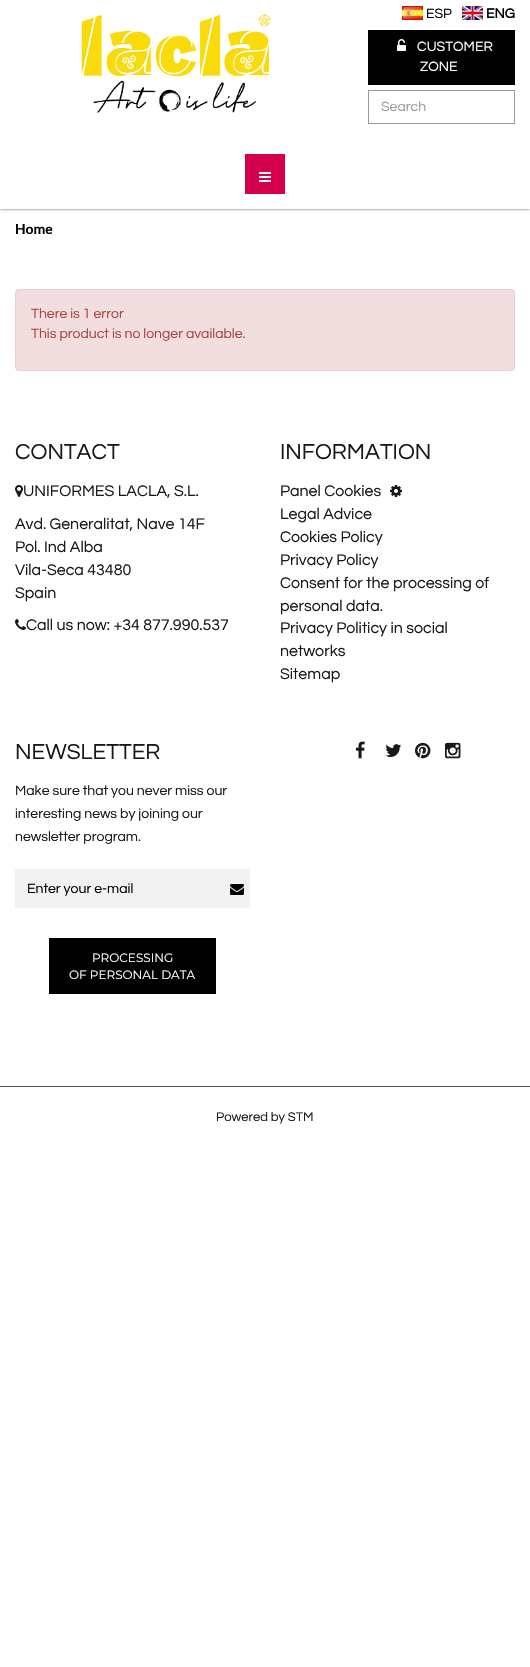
void draw(SkCanvas* canvas) {
	SkPaint paint;
	paint.setAntiAlias(true);
	canvas->clear(0xffffffff);
	canvas->save();
	canvas->clipRect(SkRect::MakeXYWH(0, 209, 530, 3));
	paint.setColor(0xff666666);
	paint.setMaskFilter(SkMaskFilter::MakeBlur(kNormal_SkBlurStyle, 1.5));
	canvas->drawRect(SkRect::MakeXYWH(0, 0, 530, 209), paint);
	paint.setMaskFilter(nullptr);
	canvas->restore();
	canvas->drawImageRect(SkImages::DeferredFromEncodedData(SkData::MakeFromFileName("img1.png")), SkRect::MakeXYWH(81, 14, 190, 99), SkSamplingOptions());
	canvas->drawImageRect(SkImages::DeferredFromEncodedData(SkData::MakeFromFileName("img2.png")), SkRect::MakeXYWH(402, 6, 21, 14), SkSamplingOptions());
	SkFont f1(fontMgr->matchFamilyStyle("Questrial", SkFontStyle::Normal()), 14);
	f1.setSubpixel(true);
	paint.setColor(0xff000000);
	canvas->drawString("ESP", 426, 18, f1, paint);
	canvas->drawImageRect(SkImages::DeferredFromEncodedData(SkData::MakeFromFileName("img3.png")), SkRect::MakeXYWH(462, 6, 21, 14), SkSamplingOptions());
	SkFont f2(fontMgr->matchFamilyStyle("Questrial", SkFontStyle::Bold()), 14);
	f2.setSubpixel(true);
	canvas->drawString("ENG", 486, 18, f2, paint);
	canvas->drawRect(SkRect::MakeXYWH(368, 30, 147, 55), paint);
	canvas->drawImageRect(SkImages::DeferredFromEncodedData(SkData::MakeFromFileName("img4.png")), SkRect::MakeXYWH(397, 39, 9, 12), SkSamplingOptions());
	paint.setColor(0xffffffff);
	canvas->drawString("CUSTOMER", 417, 51, f1, paint);
	canvas->drawString("ZONE", 420, 71, f1, paint);
	paint.setStroke(true);
	paint.setStrokeWidth(1);
	paint.setColor(0xff999999);
	canvas->drawRect(SkRect::MakeXYWH(368.5, 90.5, 146, 33), paint);
	paint.setStroke(false);
	canvas->drawString("Search", 381, 111, f1, paint);
	paint.setColor(0xffd4004d);
	canvas->drawRect(SkRect::MakeXYWH(245, 154, 40, 40), paint);
	canvas->drawImageRect(SkImages::DeferredFromEncodedData(SkData::MakeFromFileName("img5.png")), SkRect::MakeXYWH(259, 172, 12, 10), SkSamplingOptions());
	SkFont f3(fontMgr->matchFamilyStyle("Lato", SkFontStyle::Bold()), 14);
	f3.setSubpixel(true);
	paint.setColor(0xff000000);
	canvas->drawString("Home", 15, 234, f3, paint);
	paint.setColor(0xfff2dede);
	canvas->drawRoundRect(SkRect::MakeXYWH(15.5, 289.5, 499, 81), 3.5, 3.5, paint);
	paint.setStroke(true);
	paint.setColor(0xffebccd1);
	canvas->drawRoundRect(SkRect::MakeXYWH(15.5, 289.5, 499, 81), 3.5, 3.5, paint);
	paint.setStroke(false);
	paint.setColor(0xffa94442);
	canvas->drawString("There is 1 error", 31, 318, f1, paint);
	canvas->drawString("This product is no longer available.", 31, 338, f1, paint);
	SkFont f4(fontMgr->matchFamilyStyle("Questrial", SkFontStyle::Normal()), 22.5);
	f4.setSubpixel(true);
	paint.setColor(0xff1a171b);
	canvas->drawString("CONTACT", 15, 459, f4, paint);
	canvas->drawImageRect(SkImages::DeferredFromEncodedData(SkData::MakeFromFileName("img6.png")), SkRect::MakeXYWH(15, 485, 8, 12), SkSamplingOptions());
	SkFont f5(fontMgr->matchFamilyStyle("Questrial", SkFontStyle::Normal()), 16);
	f5.setSubpixel(true);
	canvas->drawString("UNIFORMES LACLA, S.L.", 23, 496, f5, paint);
	canvas->drawString("Avd. Generalitat, Nave 14F", 15, 529, f5, paint);
	canvas->drawString("Pol. Ind Alba", 15, 552, f5, paint);
	canvas->drawString("Vila-Seca 43480", 15, 575, f5, paint);
	canvas->drawString("Spain", 15, 598, f5, paint);
	canvas->drawImageRect(SkImages::DeferredFromEncodedData(SkData::MakeFromFileName("img7.png")), SkRect::MakeXYWH(15, 619, 11, 11), SkSamplingOptions());
	canvas->drawString("Call us now: +34 877.990.537", 26, 630, f5, paint);
	canvas->drawString("INFORMATION", 280, 459, f4, paint);
	canvas->drawString("Panel Cookies", 280, 496, f5, paint);
	canvas->drawImageRect(SkImages::DeferredFromEncodedData(SkData::MakeFromFileName("img8.png")), SkRect::MakeXYWH(390, 485, 12, 12), SkSamplingOptions());
	canvas->drawString("Legal Advice", 280, 519, f5, paint);
	canvas->drawString("Cookies Policy", 280, 542, f5, paint);
	canvas->drawString("Privacy Policy", 280, 565, f5, paint);
	canvas->drawString("Consent for the processing of", 280, 588, f5, paint);
	canvas->drawString("personal data.", 280, 611, f5, paint);
	canvas->drawString("Privacy Politicy in social", 280, 633, f5, paint);
	canvas->drawString("networks", 280, 656, f5, paint);
	canvas->drawString("Sitemap", 280, 679, f5, paint);
	canvas->drawString("NEWSLETTER", 15, 759, f4, paint);
	canvas->drawString("Make sure that you never miss our", 15, 795, f1, paint);
	canvas->drawString("interesting news by joining our", 15, 818, f1, paint);
	canvas->drawString("newsletter program.", 15, 841, f1, paint);
	paint.setColor(0xfff2f2f2);
	canvas->drawRect(SkRect::MakeXYWH(15, 869, 235, 39), paint);
	paint.setColor(0xff000000);
	canvas->drawString("Enter your e-mail", 27, 893, f1, paint);
	canvas->drawImageRect(SkImages::DeferredFromEncodedData(SkData::MakeFromFileName("img9.png")), SkRect::MakeXYWH(230, 884, 14, 11), SkSamplingOptions());
	canvas->drawRect(SkRect::MakeXYWH(49, 938, 167, 56), paint);
	SkFont f6(fontMgr->matchFamilyStyle("Montserrat", SkFontStyle::Normal()), 12);
	f6.setSubpixel(true);
	paint.setColor(0xffffffff);
	canvas->drawString("PROCESSING", 92, 962, f6, paint);
	canvas->drawString("OF PERSONAL DATA", 69, 979, f6, paint);
	canvas->drawImageRect(SkImages::DeferredFromEncodedData(SkData::MakeFromFileName("img10.png")), SkRect::MakeXYWH(355, 741, 10, 18), SkSamplingOptions());
	canvas->drawImageRect(SkImages::DeferredFromEncodedData(SkData::MakeFromFileName("img11.png")), SkRect::MakeXYWH(385, 744, 17, 13), SkSamplingOptions());
	canvas->drawImageRect(SkImages::DeferredFromEncodedData(SkData::MakeFromFileName("img12.png")), SkRect::MakeXYWH(415, 742, 16, 17), SkSamplingOptions());
	canvas->drawImageRect(SkImages::DeferredFromEncodedData(SkData::MakeFromFileName("img13.png")), SkRect::MakeXYWH(445, 742, 16, 17), SkSamplingOptions());
	paint.setColor(0xff525252);
	canvas->drawRect(SkRect::MakeXYWH(0, 1086, 530, 1), paint);
	SkFont f7(fontMgr->matchFamilyStyle("Questrial", SkFontStyle::Normal()), 13);
	f7.setSubpixel(true);
	paint.setColor(0xff1a171b);
	canvas->drawString("Powered by STM", 216, 1121, f7, paint);
}
